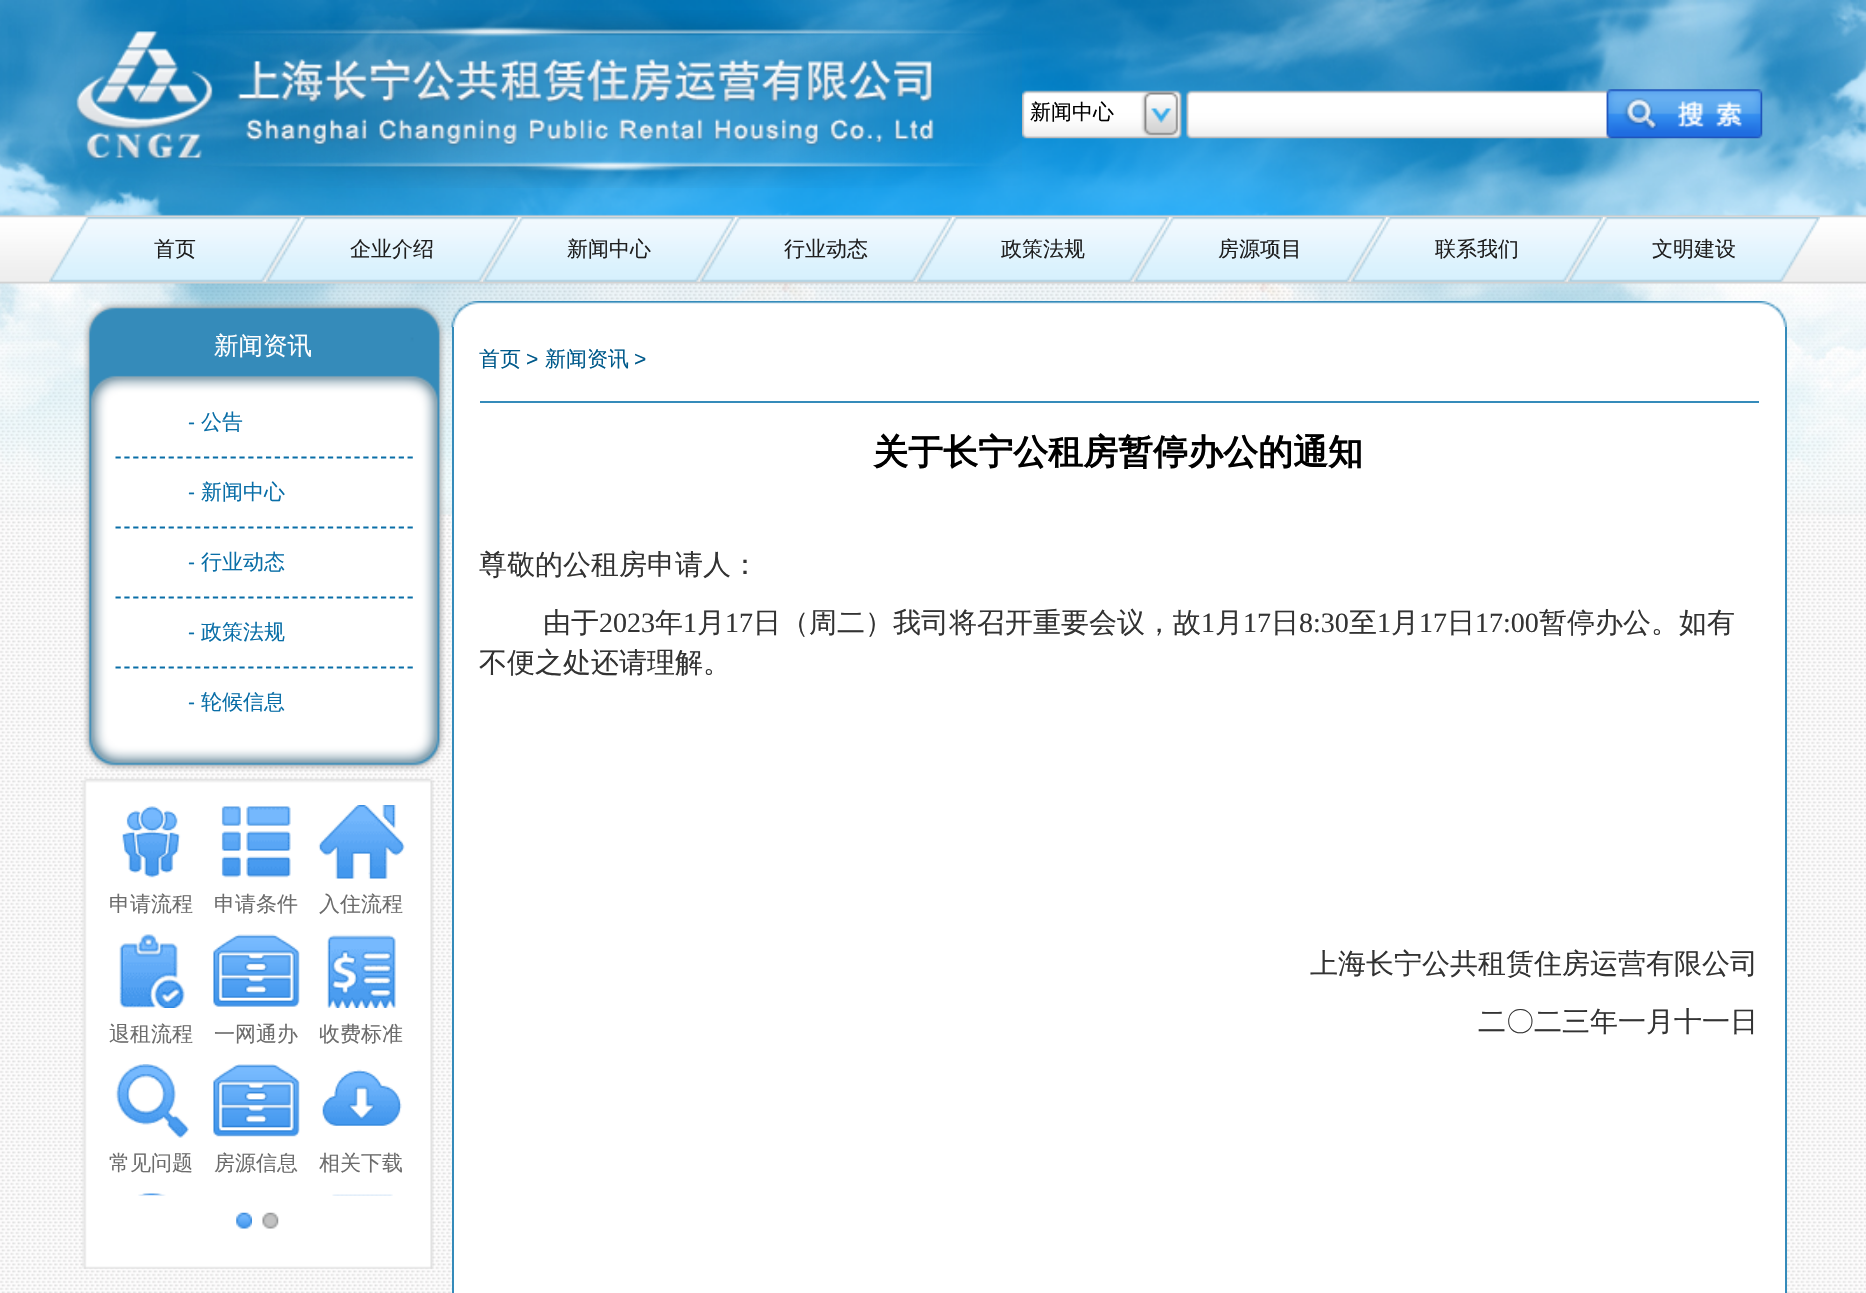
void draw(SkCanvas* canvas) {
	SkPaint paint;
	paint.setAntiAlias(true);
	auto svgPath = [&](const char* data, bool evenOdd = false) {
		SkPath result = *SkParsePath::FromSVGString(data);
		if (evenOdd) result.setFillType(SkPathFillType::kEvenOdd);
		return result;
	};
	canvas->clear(0xffffffff);
	canvas->drawImageRect(SkImages::DeferredFromEncodedData(SkData::MakeFromFileName("img1.png")), SkRect::MakeXYWH(0, 283, 1866, 1010), SkSamplingOptions());
	canvas->drawImageRect(SkImages::DeferredFromEncodedData(SkData::MakeFromFileName("img2.png")), SkRect::MakeXYWH(0, 0, 1866, 515), SkSamplingOptions());
	canvas->drawImageRect(SkImages::DeferredFromEncodedData(SkData::MakeFromFileName("img3.png")), SkRect::MakeXYWH(75, 10, 947, 178), SkSamplingOptions());
	canvas->drawImageRect(SkImages::DeferredFromEncodedData(SkData::MakeFromFileName("img4.png")), SkRect::MakeXYWH(1022, 89, 741, 50), SkSamplingOptions());
	SkFont f1(fontMgr->matchFamilyStyle("WenQuanYi Zen Hei", SkFontStyle(500, SkFontStyle::kNormal_Width, SkFontStyle::kUpright_Slant)), 21);
	f1.setSubpixel(true);
	paint.setColor(0xff000000);
	canvas->drawString("新闻中心", 1030, 119, f1, paint);
	canvas->drawImageRect(SkImages::DeferredFromEncodedData(SkData::MakeFromFileName("img5.png")), SkRect::MakeXYWH(49, 217, 252, 65), SkSamplingOptions());
	paint.setColor(0xff1f1f1f);
	canvas->drawString("首页", 154, 256, f1, paint);
	canvas->drawImageRect(SkImages::DeferredFromEncodedData(SkData::MakeFromFileName("img6.png")), SkRect::MakeXYWH(266, 217, 252, 65), SkSamplingOptions());
	canvas->drawString("企业介绍", 350, 256, f1, paint);
	canvas->drawImageRect(SkImages::DeferredFromEncodedData(SkData::MakeFromFileName("img7.png")), SkRect::MakeXYWH(483, 217, 252, 65), SkSamplingOptions());
	canvas->drawString("新闻中心", 567, 256, f1, paint);
	canvas->drawImageRect(SkImages::DeferredFromEncodedData(SkData::MakeFromFileName("img8.png")), SkRect::MakeXYWH(700, 217, 252, 65), SkSamplingOptions());
	canvas->drawString("行业动态", 784, 256, f1, paint);
	canvas->drawImageRect(SkImages::DeferredFromEncodedData(SkData::MakeFromFileName("img8.png")), SkRect::MakeXYWH(917, 217, 252, 65), SkSamplingOptions());
	canvas->drawString("政策法规", 1001, 256, f1, paint);
	canvas->drawImageRect(SkImages::DeferredFromEncodedData(SkData::MakeFromFileName("img8.png")), SkRect::MakeXYWH(1134, 217, 252, 65), SkSamplingOptions());
	canvas->drawString("房源项目", 1218, 256, f1, paint);
	canvas->drawImageRect(SkImages::DeferredFromEncodedData(SkData::MakeFromFileName("img8.png")), SkRect::MakeXYWH(1351, 217, 252, 65), SkSamplingOptions());
	canvas->drawString("联系我们", 1435, 256, f1, paint);
	canvas->drawImageRect(SkImages::DeferredFromEncodedData(SkData::MakeFromFileName("img8.png")), SkRect::MakeXYWH(1568, 217, 252, 65), SkSamplingOptions());
	canvas->drawString("文明建设", 1652, 256, f1, paint);
	canvas->drawImageRect(SkImages::DeferredFromEncodedData(SkData::MakeFromFileName("img9.png")), SkRect::MakeXYWH(83, 301, 363, 470), SkSamplingOptions());
	SkFont f2(fontMgr->matchFamilyStyle("WenQuanYi Zen Hei", SkFontStyle(500, SkFontStyle::kNormal_Width, SkFontStyle::kUpright_Slant)), 24.5);
	f2.setSubpixel(true);
	paint.setColor(0xffffffff);
	canvas->drawString("新闻资讯", 214, 354, f2, paint);
	SkFont f3(fontMgr->matchFamilyStyle("Liberation Sans", SkFontStyle::Normal()), 21);
	f3.setSubpixel(true);
	paint.setColor(0xff096ea7);
	canvas->drawString("-", 188, 429, f3, paint);
	canvas->drawString("公告", 201, 429, f1, paint);
	paint.setStroke(true);
	paint.setStrokeWidth(1.8);
	paint.setPathEffect(SkDashPathEffect::Make({{5.25f, 3.6f}}, 0));
	canvas->drawPath(svgPath("M115.5 457.5H413"), paint);
	paint.setPathEffect(nullptr);
	paint.setStroke(false);
	canvas->drawString("-", 188, 499, f3, paint);
	canvas->drawString("新闻中心", 201, 499, f1, paint);
	paint.setStroke(true);
	paint.setPathEffect(SkDashPathEffect::Make({{5.25f, 3.6f}}, 0));
	canvas->drawPath(svgPath("M115.5 527.5H413"), paint);
	paint.setPathEffect(nullptr);
	paint.setStroke(false);
	canvas->drawString("-", 188, 569, f3, paint);
	canvas->drawString("行业动态", 201, 569, f1, paint);
	paint.setStroke(true);
	paint.setPathEffect(SkDashPathEffect::Make({{5.25f, 3.6f}}, 0));
	canvas->drawPath(svgPath("M115.5 597.5H413"), paint);
	paint.setPathEffect(nullptr);
	paint.setStroke(false);
	canvas->drawString("-", 188, 639, f3, paint);
	canvas->drawString("政策法规", 201, 639, f1, paint);
	paint.setStroke(true);
	paint.setPathEffect(SkDashPathEffect::Make({{5.25f, 3.6f}}, 0));
	canvas->drawPath(svgPath("M115.5 667.5H413"), paint);
	paint.setPathEffect(nullptr);
	paint.setStroke(false);
	canvas->drawString("-", 188, 709, f3, paint);
	canvas->drawString("轮候信息", 201, 709, f1, paint);
	canvas->drawImageRect(SkImages::DeferredFromEncodedData(SkData::MakeFromFileName("img10.png")), SkRect::MakeXYWH(82, 778, 352, 491), SkSamplingOptions());
	canvas->drawImageRect(SkImages::DeferredFromEncodedData(SkData::MakeFromFileName("img11.png")), SkRect::MakeXYWH(122, 806, 59, 72), SkSamplingOptions());
	paint.setColor(0xff6c6c6c);
	canvas->drawString("申请流程", 109, 911, f1, paint);
	canvas->drawImageRect(SkImages::DeferredFromEncodedData(SkData::MakeFromFileName("img12.png")), SkRect::MakeXYWH(221, 806, 70, 72), SkSamplingOptions());
	canvas->drawString("申请条件", 214, 911, f1, paint);
	canvas->drawImageRect(SkImages::DeferredFromEncodedData(SkData::MakeFromFileName("img13.png")), SkRect::MakeXYWH(318, 805, 87, 74), SkSamplingOptions());
	canvas->drawString("入住流程", 319, 911, f1, paint);
	canvas->drawImageRect(SkImages::DeferredFromEncodedData(SkData::MakeFromFileName("img14.png")), SkRect::MakeXYWH(119, 934, 66, 74), SkSamplingOptions());
	canvas->drawString("退租流程", 109, 1041, f1, paint);
	canvas->drawImageRect(SkImages::DeferredFromEncodedData(SkData::MakeFromFileName("img15.png")), SkRect::MakeXYWH(213, 934, 87, 73), SkSamplingOptions());
	canvas->drawString("一网通办", 214, 1041, f1, paint);
	canvas->drawImageRect(SkImages::DeferredFromEncodedData(SkData::MakeFromFileName("img16.png")), SkRect::MakeXYWH(327, 934, 69, 74), SkSamplingOptions());
	canvas->drawString("收费标准", 319, 1041, f1, paint);
	canvas->drawImageRect(SkImages::DeferredFromEncodedData(SkData::MakeFromFileName("img17.png")), SkRect::MakeXYWH(115, 1064, 74, 74), SkSamplingOptions());
	canvas->drawString("常见问题", 109, 1170, f1, paint);
	canvas->drawImageRect(SkImages::DeferredFromEncodedData(SkData::MakeFromFileName("img18.png")), SkRect::MakeXYWH(213, 1064, 87, 73), SkSamplingOptions());
	canvas->drawString("房源信息", 214, 1170, f1, paint);
	canvas->drawImageRect(SkImages::DeferredFromEncodedData(SkData::MakeFromFileName("img19.png")), SkRect::MakeXYWH(322, 1069, 80, 57), SkSamplingOptions());
	canvas->drawString("相关下载", 319, 1170, f1, paint);
	canvas->drawImageRect(SkImages::DeferredFromEncodedData(SkData::MakeFromFileName("img20.png")), SkRect::MakeXYWH(138, 1193, 28, 3), SkSamplingOptions());
	canvas->drawImageRect(SkImages::DeferredFromEncodedData(SkData::MakeFromFileName("img21.png")), SkRect::MakeXYWH(332, 1194, 61, 2), SkSamplingOptions());
	canvas->drawImageRect(SkImages::DeferredFromEncodedData(SkData::MakeFromFileName("img22.png")), SkRect::MakeXYWH(236, 1212, 16, 17), SkSamplingOptions());
	canvas->drawImageRect(SkImages::DeferredFromEncodedData(SkData::MakeFromFileName("img23.png")), SkRect::MakeXYWH(262, 1212, 17, 17), SkSamplingOptions());
	canvas->drawImageRect(SkImages::DeferredFromEncodedData(SkData::MakeFromFileName("img24.png")), SkRect::MakeXYWH(451, 301, 1336, 27), SkSamplingOptions());
	paint.setColor(0xffffffff);
	canvas->drawRect(SkRect::MakeXYWH(454, 327, 1331, 966), paint);
	paint.setColor(0xff358bba);
	canvas->drawRect(SkRect::MakeXYWH(1785, 327, 2, 966), paint);
	canvas->drawRect(SkRect::MakeXYWH(452, 327, 2, 966), paint);
	canvas->drawRect(SkRect::MakeXYWH(480, 401, 1279, 2), paint);
	paint.setColor(0xff005a8b);
	canvas->drawString("首页", 479, 366, f1, paint);
	canvas->drawString(">", 526, 366, f3, paint);
	canvas->drawString("新闻资讯", 545, 366, f1, paint);
	canvas->drawString(">", 634, 366, f3, paint);
	SkFont f4(fontMgr->matchFamilyStyle("WenQuanYi Zen Hei", SkFontStyle::Bold()), 35);
	f4.setSubpixel(true);
	paint.setColor(0xff000000);
	canvas->drawString("关于长宁公租房暂停办公的通知", 873, 464, f4, paint);
	SkFont f5(fontMgr->matchFamilyStyle("WenQuanYi Zen Hei", SkFontStyle(500, SkFontStyle::kNormal_Width, SkFontStyle::kUpright_Slant)), 28);
	f5.setSubpixel(true);
	paint.setColor(0xff333333);
	canvas->drawString("尊敬的公租房申请人：", 479, 574, f5, paint);
	canvas->drawString("由于", 543, 632, f5, paint);
	SkFont f6(fontMgr->matchFamilyStyle("Liberation Serif", SkFontStyle::Normal()), 28);
	f6.setSubpixel(true);
	canvas->drawString("2023", 599, 632, f6, paint);
	canvas->drawString("年", 655, 632, f5, paint);
	canvas->drawString("1", 683, 632, f6, paint);
	canvas->drawString("月", 697, 632, f5, paint);
	canvas->drawString("17", 725, 632, f6, paint);
	canvas->drawString("日（周二）我司将召开重要会议，故", 753, 632, f5, paint);
	canvas->drawString("1", 1201, 632, f6, paint);
	canvas->drawString("月", 1215, 632, f5, paint);
	canvas->drawString("17", 1243, 632, f6, paint);
	canvas->drawString("日", 1271, 632, f5, paint);
	canvas->drawString("8:30", 1299, 632, f6, paint);
	canvas->drawString("至", 1349, 632, f5, paint);
	canvas->drawString("1", 1377, 632, f6, paint);
	canvas->drawString("月", 1391, 632, f5, paint);
	canvas->drawString("17", 1419, 632, f6, paint);
	canvas->drawString("日", 1447, 632, f5, paint);
	canvas->drawString("17:00", 1475, 632, f6, paint);
	canvas->drawString("暂停办公。如有", 1539, 632, f5, paint);
	canvas->drawString("不便之处还请理解。", 479, 672, f5, paint);
	canvas->drawString("上海长宁公共租赁住房运营有限公司", 1310, 973, f5, paint);
	canvas->drawString("二〇二三年一月十一日", 1478, 1031, f5, paint);
}
